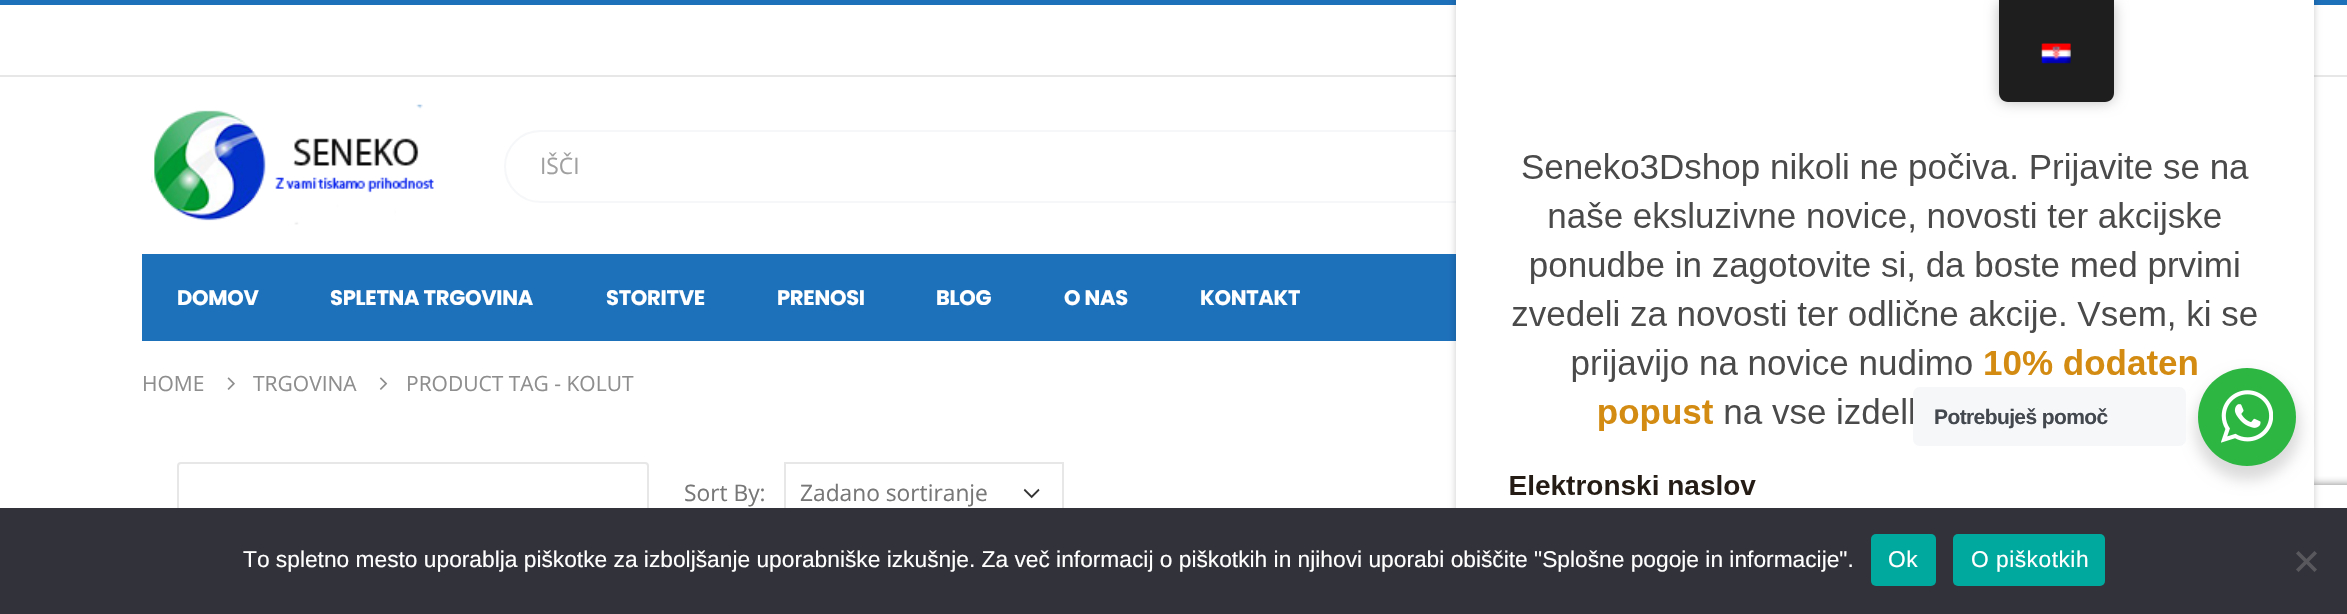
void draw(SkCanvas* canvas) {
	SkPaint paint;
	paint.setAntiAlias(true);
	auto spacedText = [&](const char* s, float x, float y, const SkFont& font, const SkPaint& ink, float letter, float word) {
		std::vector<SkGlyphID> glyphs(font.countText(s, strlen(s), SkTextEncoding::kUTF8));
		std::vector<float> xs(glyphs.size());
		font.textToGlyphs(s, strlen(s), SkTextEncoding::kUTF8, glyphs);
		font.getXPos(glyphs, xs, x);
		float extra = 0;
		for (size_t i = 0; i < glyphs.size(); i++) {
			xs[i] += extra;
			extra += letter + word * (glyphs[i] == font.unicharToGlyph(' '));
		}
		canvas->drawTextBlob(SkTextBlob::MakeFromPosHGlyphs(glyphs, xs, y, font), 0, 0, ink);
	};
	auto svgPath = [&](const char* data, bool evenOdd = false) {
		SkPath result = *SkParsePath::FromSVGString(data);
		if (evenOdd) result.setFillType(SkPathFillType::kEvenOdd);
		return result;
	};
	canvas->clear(0xffffffff);
	paint.setColor(0xff1d70ba);
	canvas->drawRect(SkRect::MakeXYWH(0, 0, 2347, 5), paint);
	paint.setColor(0xffe7e7e7);
	canvas->drawRect(SkRect::MakeXYWH(0, 75, 2347, 2), paint);
	paint.setStroke(true);
	paint.setStrokeWidth(2);
	paint.setColor(0xfff6f7f9);
	canvas->drawRoundRect(SkRect::MakeXYWH(505, 131, 1445, 71), 35.5, 35.5, paint);
	paint.setStroke(false);
	paint.setColor(0xff1d70ba);
	canvas->drawRect(SkRect::MakeXYWH(142, 254, 1314, 87), paint);
	paint.setColor(0x33000000);
	paint.setMaskFilter(SkMaskFilter::MakeBlur(kNormal_SkBlurStyle, 3.5));
	canvas->drawRoundRect(SkRect::MakeXYWH(1456, -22, 858, 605), 11, 11, paint);
	paint.setMaskFilter(nullptr);
	canvas->save();
	canvas->clipRect(SkRect::MakeXYWH(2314, 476, 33, 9));
	paint.setColor(0xff808080);
	paint.setMaskFilter(SkMaskFilter::MakeBlur(kNormal_SkBlurStyle, 4.5));
	canvas->drawRoundRect(SkRect::MakeXYWH(2226, 485, 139, 105), 4, 4, paint);
	paint.setMaskFilter(nullptr);
	canvas->restore();
	paint.setColor(0xffffffff);
	canvas->drawRect(SkRect::MakeXYWH(1456, 0, 858, 508), paint);
	canvas->drawImageRect(SkImages::DeferredFromEncodedData(SkData::MakeFromFileName("img1.png")), SkRect::MakeXYWH(1456, 153, 855, 355), SkSamplingOptions());
	paint.setColor(0x40000000);
	paint.setMaskFilter(SkMaskFilter::MakeBlur(kNormal_SkBlurStyle, 7));
	canvas->drawRoundRect(SkRect::MakeXYWH(1999, 0, 115, 102), 9, 9, paint);
	paint.setMaskFilter(nullptr);
	paint.setColor(0xff1e1e1e);
	canvas->drawPath(svgPath("M1999 0H2114V93C2114 98 2110 102 2105 102H2008C2003 102 1999 98 1999 93Z"), paint);
	canvas->drawImageRect(SkImages::DeferredFromEncodedData(SkData::MakeFromFileName("img2.png")), SkRect::MakeXYWH(2041, 43, 30, 21), SkSamplingOptions());
	canvas->drawImageRect(SkImages::DeferredFromEncodedData(SkData::MakeFromFileName("img3.png")), SkRect::MakeXYWH(2041, 43, 30, 20), SkSamplingOptions());
	canvas->drawImageRect(SkImages::DeferredFromEncodedData(SkData::MakeFromFileName("img4.png")), SkRect::MakeXYWH(151, 104, 283, 121), SkSamplingOptions());
	SkFont f1(fontMgr->matchFamilyStyle("Open Sans", SkFontStyle::Normal()), 22.75);
	f1.setSubpixel(true);
	paint.setColor(0xffa0a0a0);
	canvas->drawString("IŠČI", 540, 174, f1, paint);
	SkFont f2(fontMgr->matchFamilyStyle("Poppins", SkFontStyle::Bold()), 21);
	f2.setSubpixel(true);
	paint.setColor(0xffffffff);
	spacedText("DOMOV", 177, 305, f2, paint, -0.25, 0);
	spacedText("SPLETNA TRGOVINA", 330, 305, f2, paint, -0.25, 0);
	spacedText("STORITVE", 606, 305, f2, paint, -0.25, 0);
	spacedText("PRENOSI", 777, 305, f2, paint, -0.25, 0);
	spacedText("BLOG", 936, 305, f2, paint, -0.25, 0);
	spacedText("O NAS", 1064, 305, f2, paint, -0.25, 0);
	spacedText("KONTAKT", 1200, 305, f2, paint, -0.25, 0);
	SkFont f3(fontMgr->matchFamilyStyle("Open Sans", SkFontStyle::Normal()), 21);
	f3.setSubpixel(true);
	paint.setColor(0xff8e8e8e);
	canvas->drawString("HOME", 142, 391, f3, paint);
	canvas->drawImageRect(SkImages::DeferredFromEncodedData(SkData::MakeFromFileName("img5.png")), SkRect::MakeXYWH(227, 377, 8, 13), SkSamplingOptions());
	canvas->drawString("TRGOVINA", 253, 391, f3, paint);
	canvas->drawImageRect(SkImages::DeferredFromEncodedData(SkData::MakeFromFileName("img6.png")), SkRect::MakeXYWH(379, 377, 9, 13), SkSamplingOptions());
	canvas->drawString("PRODUCT TAG - KOLUT", 406, 391, f3, paint);
	paint.setStroke(true);
	paint.setColor(0xffe7e7e7);
	canvas->drawRoundRect(SkRect::MakeXYWH(178, 463, 470, 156), 3, 3, paint);
	paint.setStroke(false);
	paint.setColor(0xff777777);
	canvas->drawString("Sort By:", 684, 501, f1, paint);
	canvas->drawImageRect(SkImages::DeferredFromEncodedData(SkData::MakeFromFileName("img7.png")), SkRect::MakeXYWH(1023, 488, 17, 11), SkSamplingOptions());
	paint.setStroke(true);
	paint.setColor(0xffe7e7e7);
	canvas->drawRect(SkRect::MakeXYWH(785, 463, 278, 58), paint);
	paint.setStroke(false);
	paint.setColor(0xff777777);
	canvas->drawString("Zadano sortiranje", 800, 501, f1, paint);
	paint.setColor(0x24000000);
	paint.setMaskFilter(SkMaskFilter::MakeBlur(kNormal_SkBlurStyle, 7));
	canvas->drawRoundRect(SkRect::MakeXYWH(2195, 375, 105, 105), 52.5, 52.5, paint);
	paint.setMaskFilter(nullptr);
	paint.setColor(0xfff5f7f9);
	canvas->drawRoundRect(SkRect::MakeXYWH(1913, 387, 273, 59), 7, 7, paint);
	SkFont f4(fontMgr->matchFamilyStyle("Liberation Sans", SkFontStyle::Bold()), 21);
	f4.setSubpixel(true);
	paint.setColor(0xff43474e);
	spacedText("Potrebuješ pomoč", 1934, 424, f4, paint, -0.6, 0);
	paint.setColor(0xff2db742);
	canvas->drawCircle(2247, 417, 49, paint);
	canvas->drawImageRect(SkImages::DeferredFromEncodedData(SkData::MakeFromFileName("img8.png")), SkRect::MakeXYWH(2221, 390, 52, 53), SkSamplingOptions());
	paint.setColor(0xff32323a);
	canvas->drawRect(SkRect::MakeXYWH(0, 508, 2347, 106), paint);
	SkFont f5(fontMgr->matchFamilyStyle("Liberation Sans", SkFontStyle::Normal()), 22.75);
	f5.setSubpixel(true);
	paint.setColor(0xffffffff);
	canvas->drawString("To spletno mesto uporablja piškotke za izboljšanje uporabniške izkušnje. Za več informacij o piškotkih in njihovi uporabi obiščite \"Splošne pogoje in informacije\".", 243, 567, f5, paint);
	paint.setColor(0xff00a99d);
	canvas->drawRoundRect(SkRect::MakeXYWH(1871, 534, 65, 52), 5, 5, paint);
	paint.setColor(0xffffffff);
	spacedText("Ok", 1888, 567, f5, paint, 0.5, 0);
	paint.setColor(0xff00a99d);
	canvas->drawRoundRect(SkRect::MakeXYWH(1953, 534, 152, 52), 5, 5, paint);
	paint.setColor(0xffffffff);
	spacedText("O piškotkih", 1971, 567, f5, paint, 0.5, 0);
	paint.setColor(0xff59595d);
	canvas->drawPath(svgPath("M2314.5 551L2317 553.5L2298.5 572L2296 569.5Z"), paint);
	canvas->drawPath(svgPath("M2296 553.5L2298.5 551L2317 569.5L2314.5 572Z"), paint);
}
